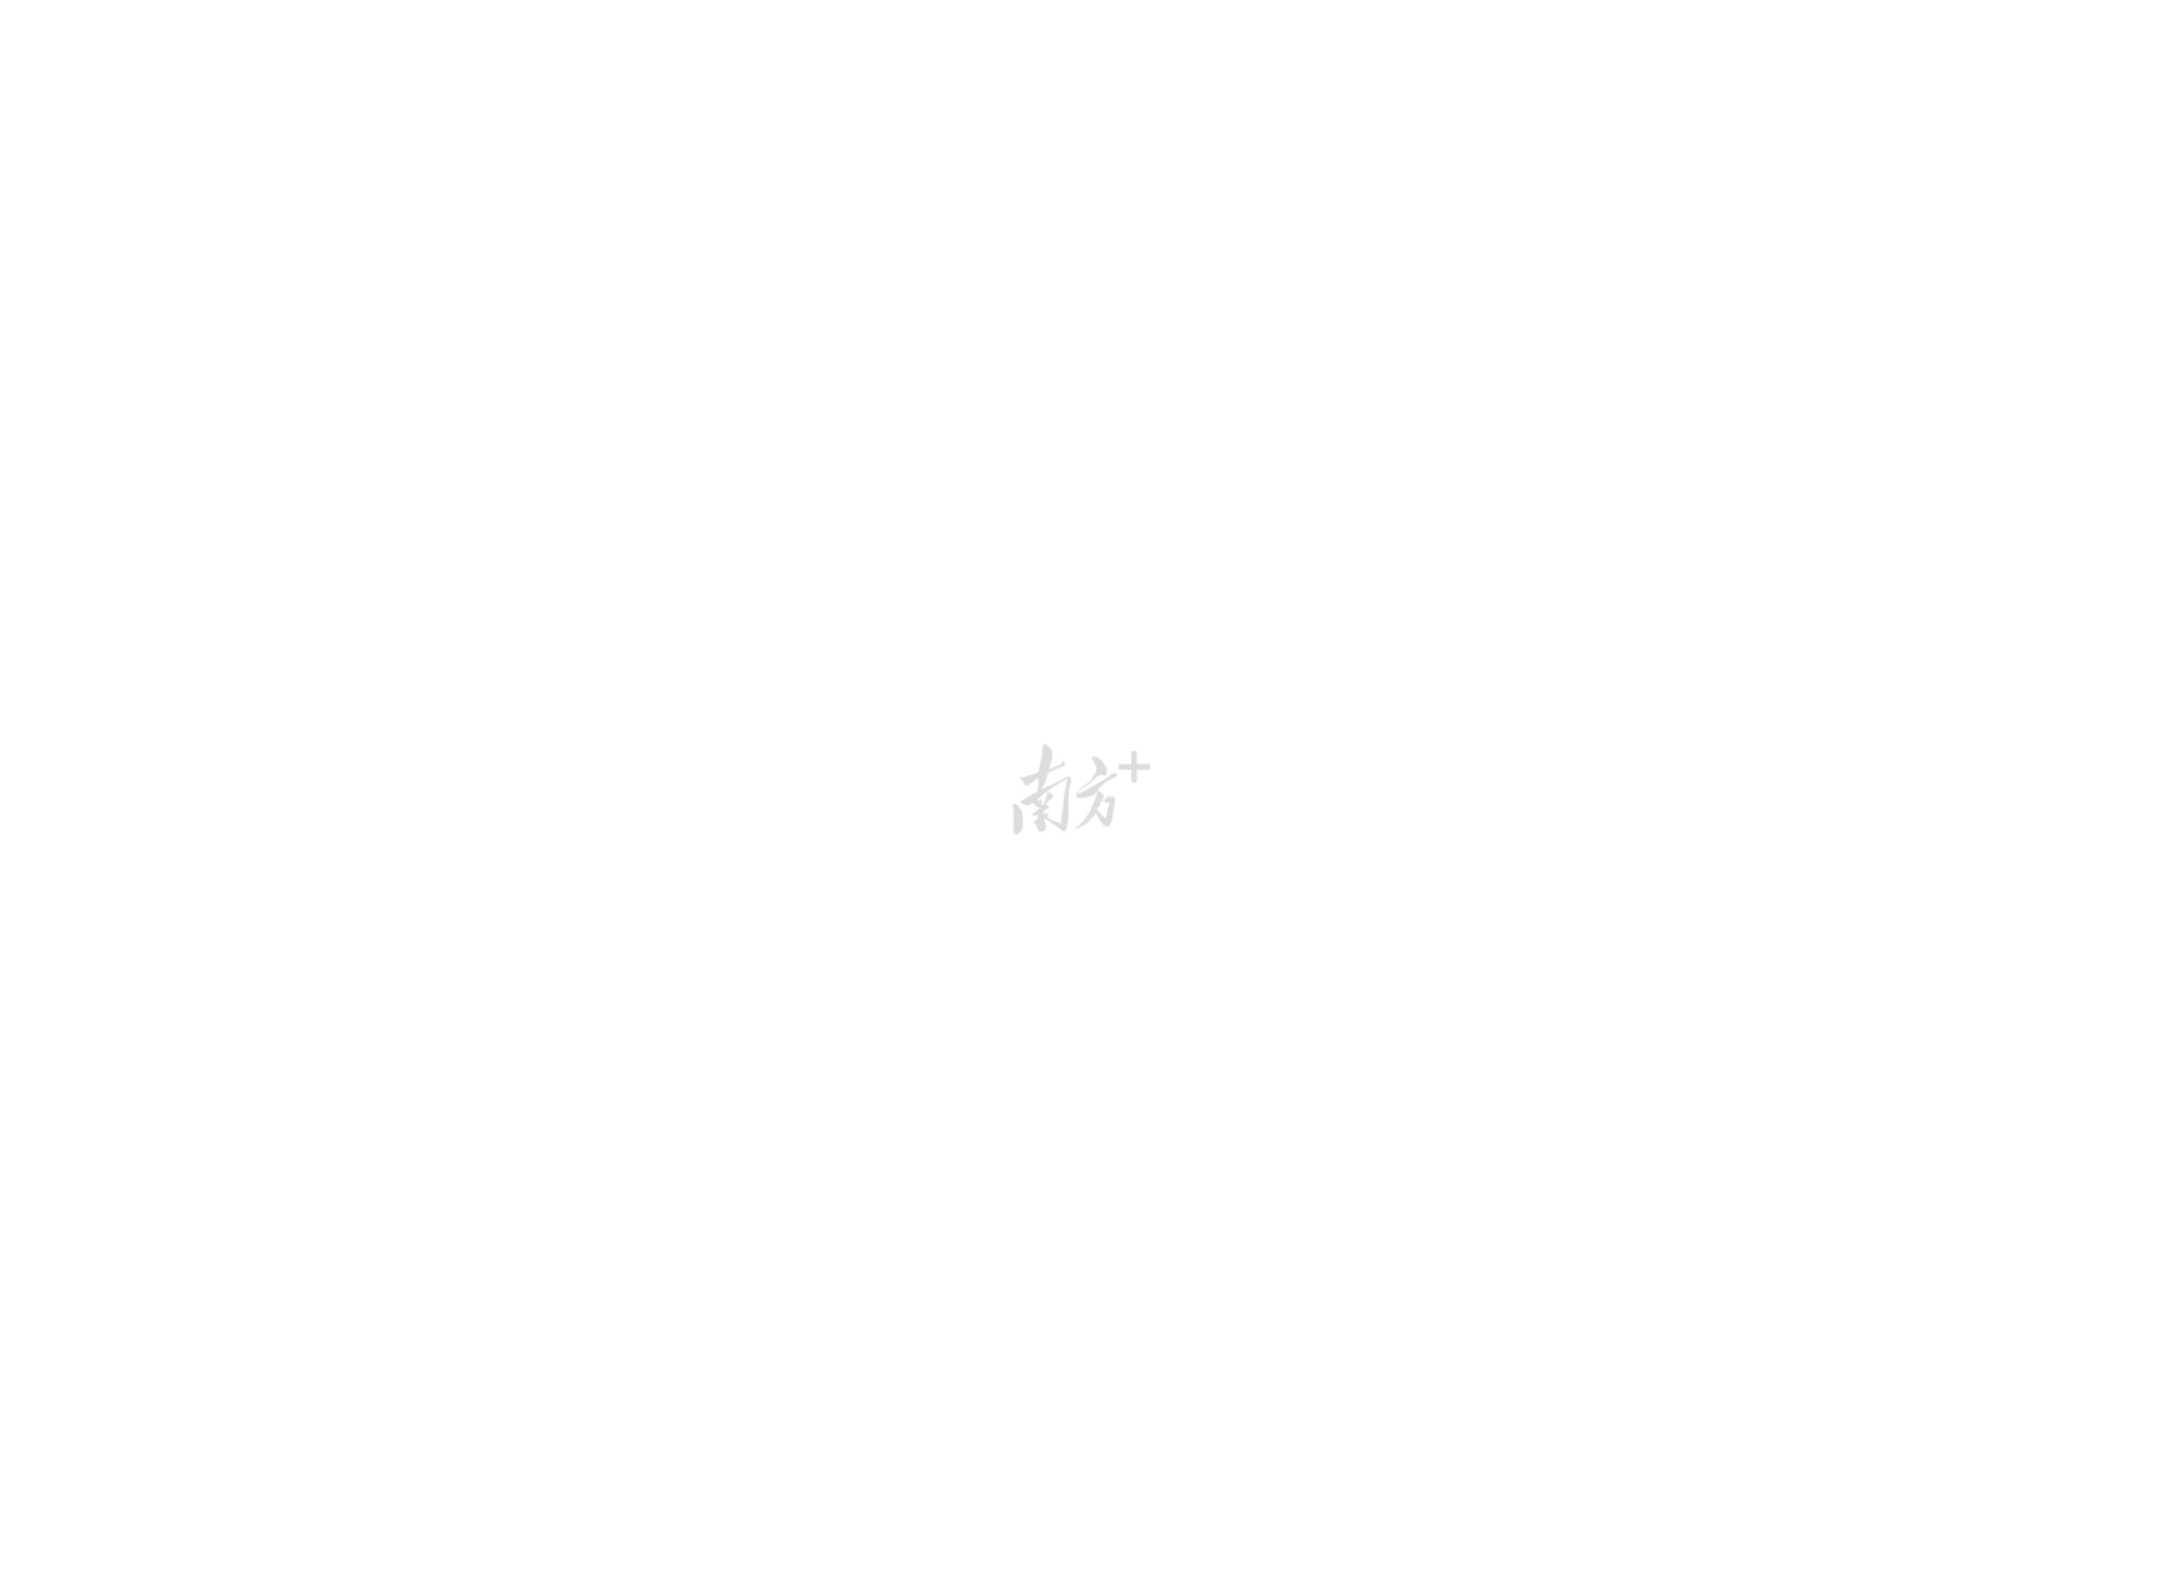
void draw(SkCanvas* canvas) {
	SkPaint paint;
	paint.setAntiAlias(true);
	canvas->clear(0xffffffff);
	canvas->drawImageRect(SkImages::DeferredFromEncodedData(SkData::MakeFromFileName("img1.png")), SkRect::MakeXYWH(1012, 743, 138, 92), SkSamplingOptions());
}
